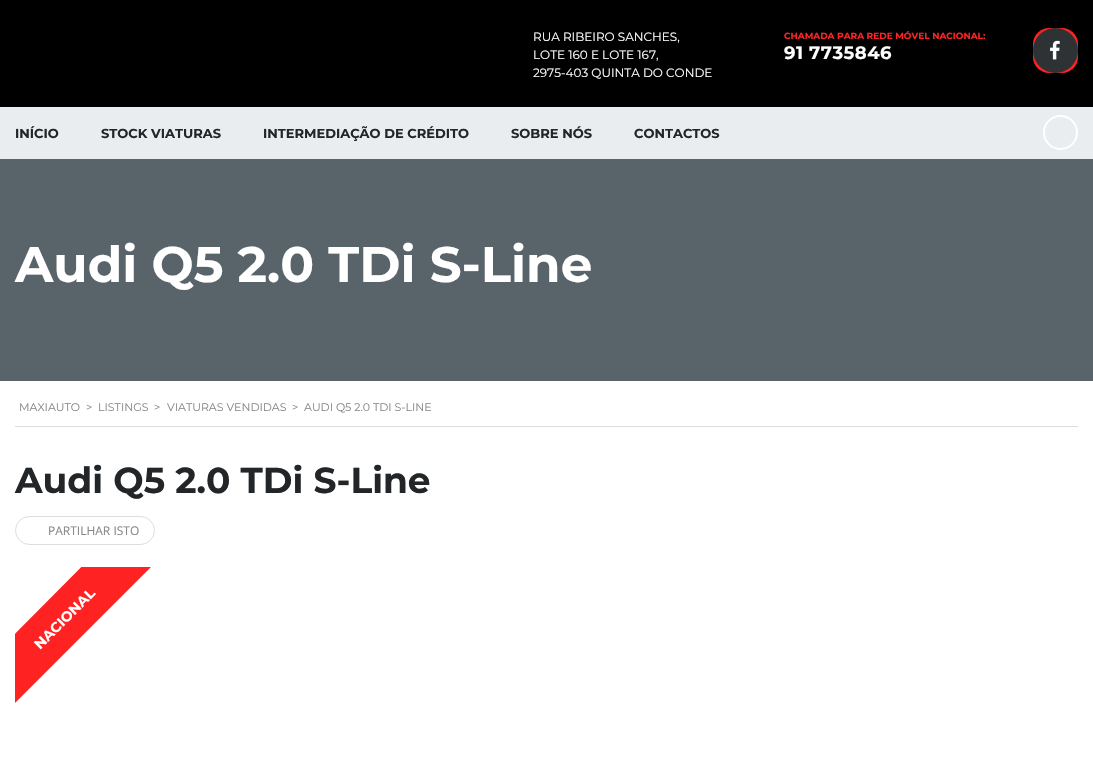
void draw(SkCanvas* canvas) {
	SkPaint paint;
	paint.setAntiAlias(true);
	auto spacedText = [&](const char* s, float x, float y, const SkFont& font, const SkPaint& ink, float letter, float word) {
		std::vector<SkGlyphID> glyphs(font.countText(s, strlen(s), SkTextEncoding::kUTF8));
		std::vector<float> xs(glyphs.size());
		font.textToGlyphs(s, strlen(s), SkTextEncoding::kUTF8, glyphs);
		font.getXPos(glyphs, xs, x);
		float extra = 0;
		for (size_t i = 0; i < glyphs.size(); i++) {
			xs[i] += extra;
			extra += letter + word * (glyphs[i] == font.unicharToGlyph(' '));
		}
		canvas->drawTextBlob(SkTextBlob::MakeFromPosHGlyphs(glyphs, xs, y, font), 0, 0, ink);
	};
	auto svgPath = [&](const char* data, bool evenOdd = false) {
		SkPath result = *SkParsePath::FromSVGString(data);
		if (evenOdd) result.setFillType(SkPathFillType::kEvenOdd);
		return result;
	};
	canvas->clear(0xffffffff);
	paint.setColor(0xff000000);
	canvas->drawRect(SkRect::MakeXYWH(0, 0, 1093, 107), paint);
	SkFont f1(fontMgr->matchFamilyStyle("Montserrat", SkFontStyle::Normal()), 12);
	f1.setSubpixel(true);
	paint.setColor(0xffffffff);
	canvas->drawString("RUA RIBEIRO SANCHES,", 533, 41, f1, paint);
	canvas->drawString("LOTE 160 E LOTE 167,", 533, 59, f1, paint);
	canvas->drawString("2975-403 QUINTA DO CONDE", 533, 77, f1, paint);
	SkFont f2(fontMgr->matchFamilyStyle("Montserrat", SkFontStyle::Bold()), 9);
	f2.setSubpixel(true);
	paint.setColor(0xffff2222);
	canvas->drawString("CHAMADA PARA REDE MÓVEL NACIONAL:", 784, 39, f2, paint);
	SkFont f3(fontMgr->matchFamilyStyle("Montserrat", SkFontStyle::Bold()), 18);
	f3.setSubpixel(true);
	paint.setColor(0xffffffff);
	spacedText("91 7735846", 784, 59, f3, paint, 0.5, 0);
	paint.setColor(0xffff2222);
	canvas->drawRoundRect(SkRect::MakeXYWH(1033, 28, 45, 45), 16, 16, paint);
	paint.setColor(0xff2f3234);
	canvas->drawCircle(1055.5, 50.5, 22.5, paint);
	canvas->drawImageRect(SkImages::DeferredFromEncodedData(SkData::MakeFromFileName("img1.png")), SkRect::MakeXYWH(1050, 40, 10, 20), SkSamplingOptions());
	paint.setColor(0xffeaedf0);
	canvas->drawRect(SkRect::MakeXYWH(0, 107, 1093, 52), paint);
	SkFont f4(fontMgr->matchFamilyStyle("Montserrat", SkFontStyle::Bold()), 13);
	f4.setSubpixel(true);
	paint.setColor(0xff232628);
	canvas->drawString("INÍCIO", 15, 138, f4, paint);
	canvas->drawString("STOCK VIATURAS", 101, 138, f4, paint);
	canvas->drawString("INTERMEDIAÇÃO DE CRÉDITO", 263, 138, f4, paint);
	canvas->drawString("SOBRE NÓS", 511, 138, f4, paint);
	canvas->drawString("CONTACTOS", 634, 138, f4, paint);
	paint.setStroke(true);
	paint.setStrokeWidth(2);
	paint.setColor(0xffffffff);
	canvas->drawCircle(1060.5, 132.5, 16.5, paint);
	paint.setStroke(false);
	paint.setColor(0xff59636a);
	canvas->drawRect(SkRect::MakeXYWH(0, 159, 1093, 222), paint);
	SkFont f5(fontMgr->matchFamilyStyle("Montserrat", SkFontStyle::Bold()), 50);
	f5.setSubpixel(true);
	paint.setColor(0xffffffff);
	canvas->drawString("Audi Q5 2.0 TDi S-Line", 15, 282, f5, paint);
	paint.setColor(0xffdddddd);
	canvas->drawRect(SkRect::MakeXYWH(15, 426, 1063, 1), paint);
	SkFont f6(fontMgr->matchFamilyStyle("Montserrat", SkFontStyle::Normal()), 11);
	f6.setSubpixel(true);
	paint.setColor(0xff888888);
	canvas->drawString("MAXIAUTO", 19, 411, f6, paint);
	canvas->drawString(">", 86, 411, f6, paint);
	canvas->drawString("LISTINGS", 98, 411, f6, paint);
	canvas->drawString(">", 154, 411, f6, paint);
	canvas->drawString("VIATURAS VENDIDAS", 167, 411, f6, paint);
	canvas->drawString(">", 292, 411, f6, paint);
	canvas->drawString("AUDI Q5 2.0 TDI S-LINE", 304, 411, f6, paint);
	SkFont f7(fontMgr->matchFamilyStyle("Montserrat", SkFontStyle::Bold()), 36);
	f7.setSubpixel(true);
	paint.setColor(0xff232628);
	canvas->drawString("Audi Q5 2.0 TDi S-Line", 15, 493, f7, paint);
	paint.setStroke(true);
	paint.setStrokeWidth(1);
	paint.setColor(0xffdddddd);
	canvas->drawRoundRect(SkRect::MakeXYWH(15.5, 516.5, 139, 28), 14, 14, paint);
	SkFont f8(fontMgr->matchFamilyStyle("Open Sans", SkFontStyle::Normal()), 12);
	f8.setSubpixel(true);
	paint.setStroke(false);
	paint.setColor(0xff888888);
	canvas->drawString("PARTILHAR ISTO", 48, 535, f8, paint);
	canvas->save();
	canvas->clipRect(SkRect::MakeXYWH(15, 567, 1036, 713));
	paint.setColor(0xffff2222);
	canvas->drawPath(svgPath("M-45 694L139 509L174 544L-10 728Z"), paint);
	canvas->restore();
	SkFont f9(fontMgr->matchFamilyStyle("Montserrat", SkFontStyle::Bold()), 14);
	f9.setSubpixel(true);
	paint.setColor(0xffffffff);
	canvas->save();
	canvas->rotate(-45, 40, 650);
	canvas->drawString("NACIONAL", 40, 650, f9, paint);
	canvas->restore();
}
